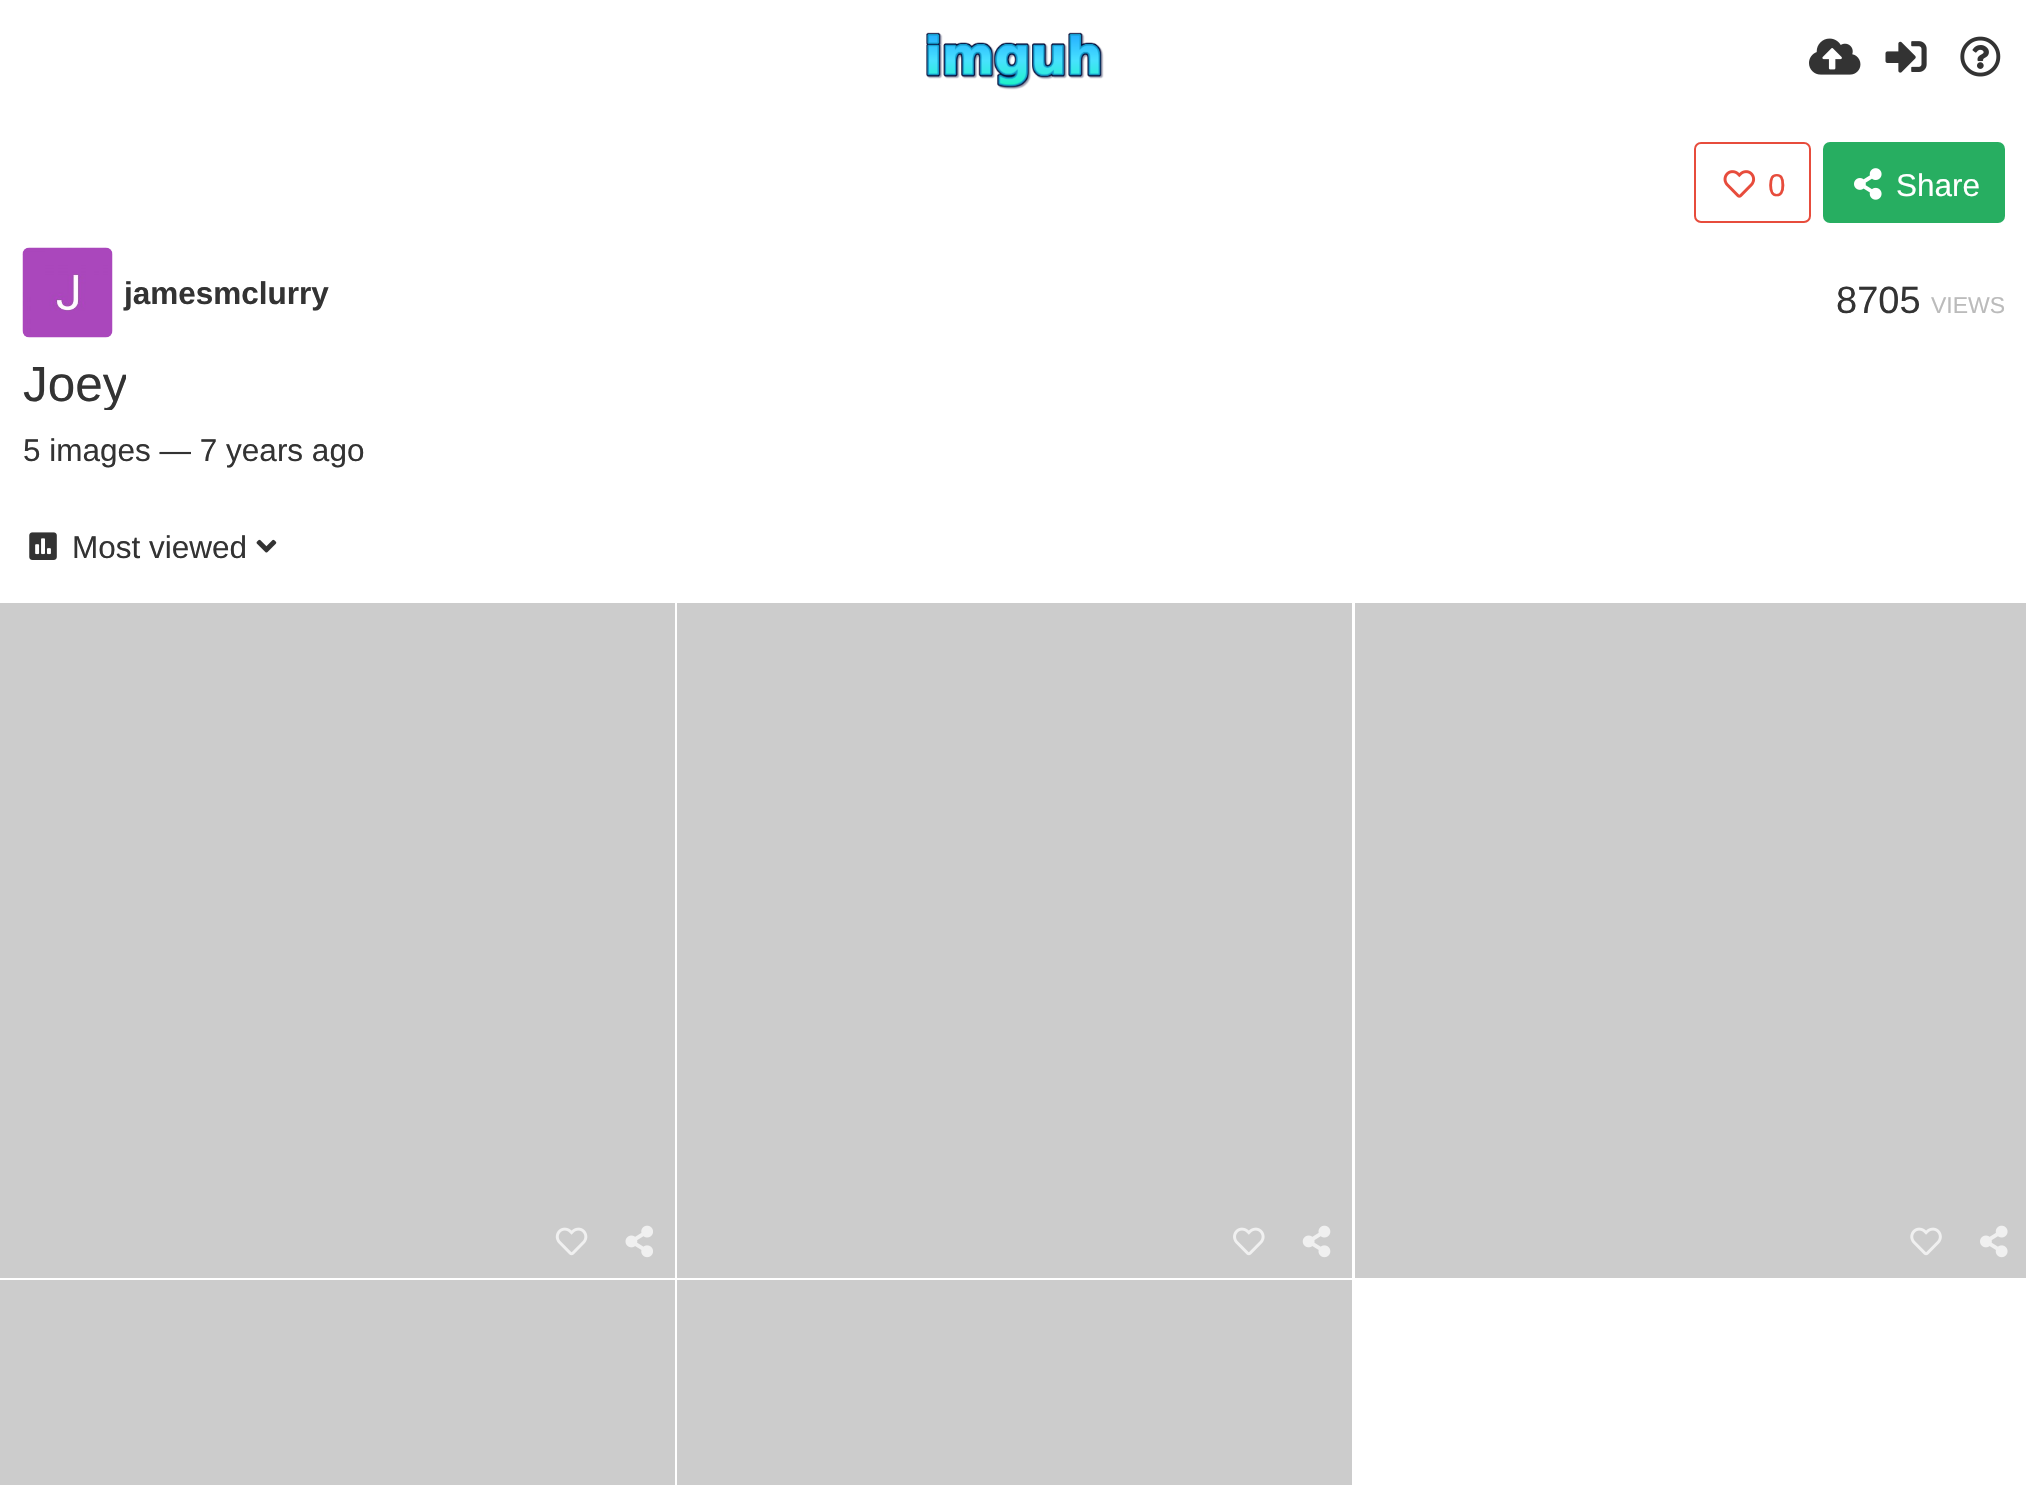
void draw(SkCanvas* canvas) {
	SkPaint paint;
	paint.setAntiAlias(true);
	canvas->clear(0xffffffff);
	canvas->drawImageRect(SkImages::DeferredFromEncodedData(SkData::MakeFromFileName("img1.png")), SkRect::MakeXYWH(926, 32, 178, 58), SkSamplingOptions());
	canvas->drawImageRect(SkImages::DeferredFromEncodedData(SkData::MakeFromFileName("img2.png")), SkRect::MakeXYWH(1809, 38, 52, 37), SkSamplingOptions());
	canvas->drawImageRect(SkImages::DeferredFromEncodedData(SkData::MakeFromFileName("img3.png")), SkRect::MakeXYWH(1885, 41, 42, 32), SkSamplingOptions());
	canvas->drawImageRect(SkImages::DeferredFromEncodedData(SkData::MakeFromFileName("img4.png")), SkRect::MakeXYWH(1960, 36, 41, 41), SkSamplingOptions());
	paint.setStroke(true);
	paint.setStrokeWidth(2);
	paint.setColor(0xffe74c3c);
	canvas->drawRoundRect(SkRect::MakeXYWH(1695, 143, 115, 79), 6, 6, paint);
	canvas->drawImageRect(SkImages::DeferredFromEncodedData(SkData::MakeFromFileName("img5.png")), SkRect::MakeXYWH(1723, 170, 33, 28), SkSamplingOptions());
	SkFont f1(fontMgr->matchFamilyStyle("Liberation Sans", SkFontStyle::Normal()), 31.5);
	f1.setSubpixel(true);
	paint.setStroke(false);
	canvas->drawString("0", 1768, 196, f1, paint);
	paint.setColor(0xff27ae61);
	canvas->drawRoundRect(SkRect::MakeXYWH(1823, 142, 182, 81), 7, 7, paint);
	canvas->drawImageRect(SkImages::DeferredFromEncodedData(SkData::MakeFromFileName("img6.png")), SkRect::MakeXYWH(1854, 168, 28, 32), SkSamplingOptions());
	paint.setColor(0xffffffff);
	canvas->drawString("Share", 1896, 196, f1, paint);
	canvas->drawImageRect(SkImages::DeferredFromEncodedData(SkData::MakeFromFileName("img7.png")), SkRect::MakeXYWH(22, 247, 91, 91), SkSamplingOptions());
	SkFont f2(fontMgr->matchFamilyStyle("Liberation Sans", SkFontStyle::Bold()), 31.5);
	f2.setSubpixel(true);
	paint.setColor(0xff333333);
	canvas->drawString("jamesmclurry", 124, 304, f2, paint);
	SkFont f3(fontMgr->matchFamilyStyle("Liberation Sans", SkFontStyle::Normal()), 38);
	f3.setSubpixel(true);
	canvas->drawString("8705", 1836, 313, f3, paint);
	SkFont f4(fontMgr->matchFamilyStyle("Liberation Sans", SkFontStyle::Normal()), 23);
	f4.setSubpixel(true);
	paint.setColor(0xffbbbbbb);
	canvas->drawString("VIEWS", 1931, 313, f4, paint);
	canvas->save();
	canvas->clipRect(SkRect::MakeXYWH(23, 360, 103, 50));
	SkFont f5(fontMgr->matchFamilyStyle("Liberation Sans", SkFontStyle::Normal()), 49.5);
	f5.setSubpixel(true);
	paint.setColor(0xff333333);
	canvas->drawString("Joey", 23, 401, f5, paint);
	canvas->restore();
	canvas->drawString("5 images — 7 years ago", 23, 461, f1, paint);
	canvas->drawImageRect(SkImages::DeferredFromEncodedData(SkData::MakeFromFileName("img8.png")), SkRect::MakeXYWH(29, 532, 28, 28), SkSamplingOptions());
	canvas->drawString("Most viewed", 72, 558, f1, paint);
	canvas->drawImageRect(SkImages::DeferredFromEncodedData(SkData::MakeFromFileName("img9.png")), SkRect::MakeXYWH(256, 539, 21, 14), SkSamplingOptions());
	paint.setColor(0xffcccccc);
	canvas->drawRect(SkRect::MakeXYWH(0, 603, 675, 675), paint);
	canvas->drawImageRect(SkImages::DeferredFromEncodedData(SkData::MakeFromFileName("img10.png")), SkRect::MakeXYWH(555, 1227, 33, 29), SkSamplingOptions());
	canvas->drawImageRect(SkImages::DeferredFromEncodedData(SkData::MakeFromFileName("img11.png")), SkRect::MakeXYWH(625, 1225, 28, 33), SkSamplingOptions());
	canvas->drawRect(SkRect::MakeXYWH(677, 603, 675, 675), paint);
	canvas->drawImageRect(SkImages::DeferredFromEncodedData(SkData::MakeFromFileName("img12.png")), SkRect::MakeXYWH(1233, 1227, 32, 29), SkSamplingOptions());
	canvas->drawImageRect(SkImages::DeferredFromEncodedData(SkData::MakeFromFileName("img13.png")), SkRect::MakeXYWH(1302, 1225, 29, 33), SkSamplingOptions());
	canvas->drawRect(SkRect::MakeXYWH(1355, 603, 671, 675), paint);
	canvas->drawImageRect(SkImages::DeferredFromEncodedData(SkData::MakeFromFileName("img14.png")), SkRect::MakeXYWH(1910, 1227, 32, 29), SkSamplingOptions());
	canvas->drawImageRect(SkImages::DeferredFromEncodedData(SkData::MakeFromFileName("img15.png")), SkRect::MakeXYWH(1980, 1225, 28, 33), SkSamplingOptions());
	canvas->drawRect(SkRect::MakeXYWH(0, 1280, 675, 205), paint);
	canvas->drawRect(SkRect::MakeXYWH(677, 1280, 675, 205), paint);
}
